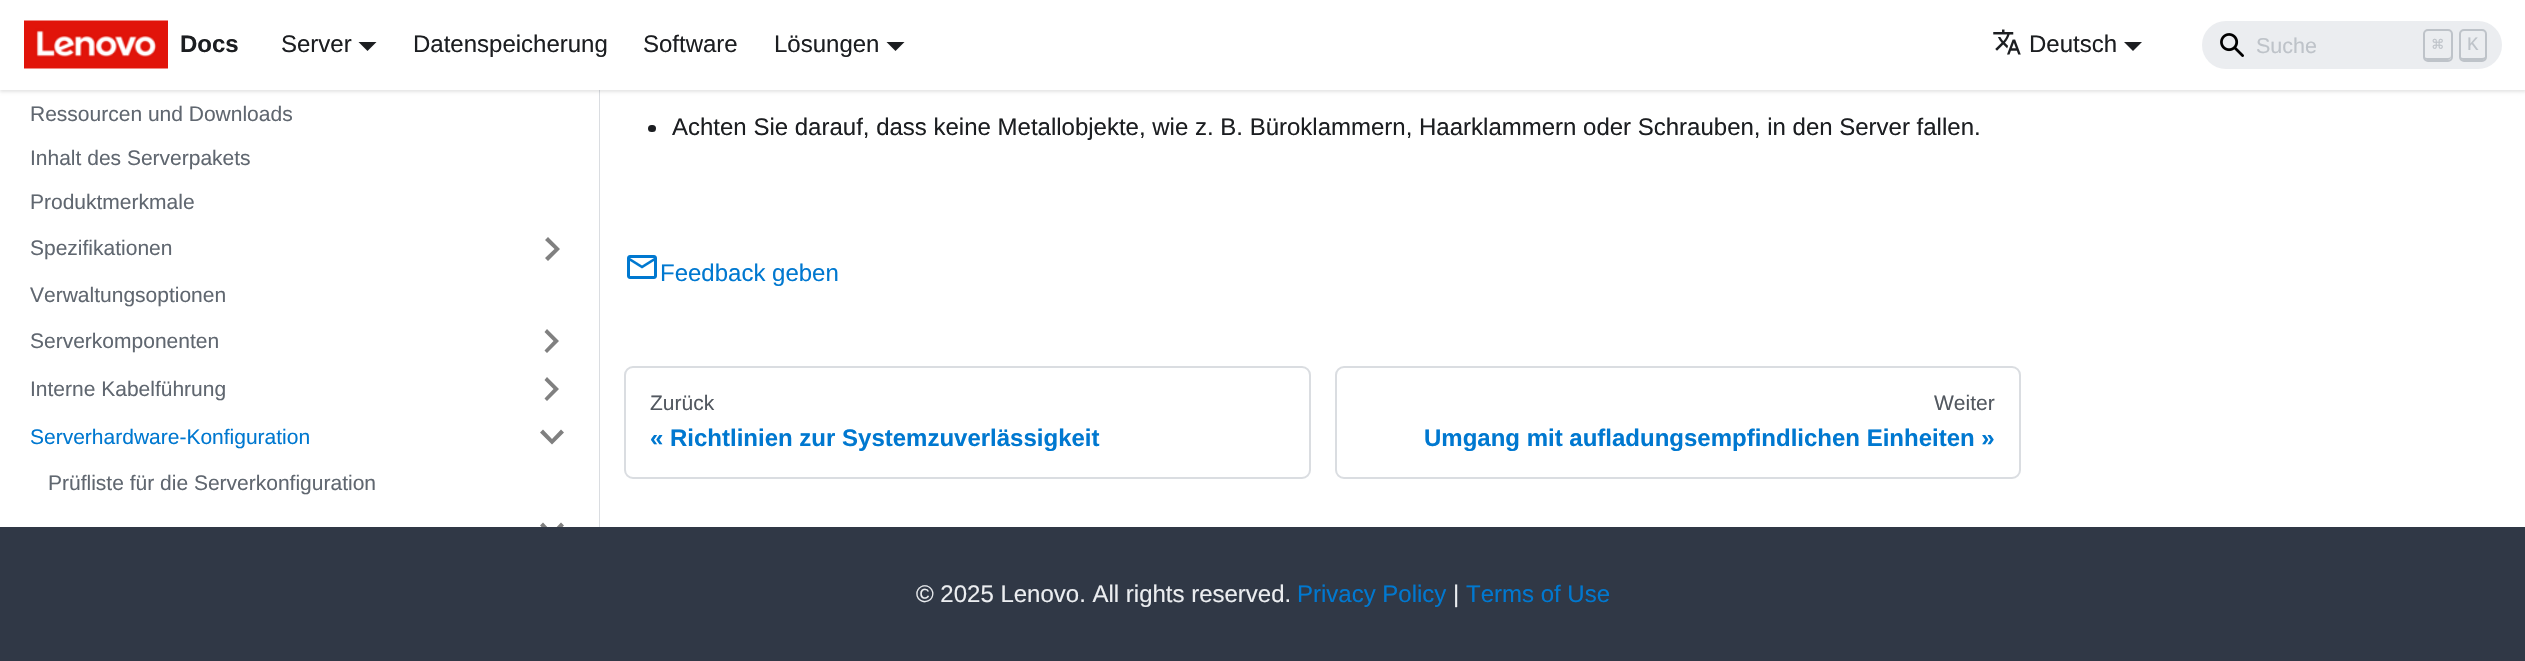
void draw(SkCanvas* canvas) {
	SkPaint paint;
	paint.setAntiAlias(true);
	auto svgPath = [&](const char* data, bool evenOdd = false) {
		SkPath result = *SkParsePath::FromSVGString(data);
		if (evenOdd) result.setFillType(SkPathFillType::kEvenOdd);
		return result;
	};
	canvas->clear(0xffffffff);
	paint.setColor(0xffdadde1);
	canvas->drawRect(SkRect::MakeXYWH(599, 90, 1, 437), paint);
	paint.setColor(0x1a000000);
	paint.setMaskFilter(SkMaskFilter::MakeBlur(kNormal_SkBlurStyle, 1.5));
	canvas->drawRect(SkRect::MakeXYWH(0, 2, 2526, 90), paint);
	paint.setMaskFilter(nullptr);
	paint.setColor(0xffffffff);
	canvas->drawRect(SkRect::MakeXYWH(0, 0, 2525, 90), paint);
	canvas->drawImageRect(SkImages::DeferredFromEncodedData(SkData::MakeFromFileName("img1.png")), SkRect::MakeXYWH(24, 20, 144, 49), SkSamplingOptions());
	SkFont f1(fontMgr->matchFamilyStyle("Liberation Sans", SkFontStyle::Bold()), 24);
	f1.setSubpixel(true);
	paint.setColor(0xff1c1e21);
	canvas->drawString("Docs", 180, 52, f1, paint);
	SkFont f2(fontMgr->matchFamilyStyle("Liberation Sans", SkFontStyle::Normal()), 24);
	f2.setSubpixel(true);
	canvas->drawString("Server", 281, 52, f2, paint);
	canvas->drawPath(svgPath("M358.5 42H376.5L367.5 51Z"), paint);
	canvas->drawString("Datenspeicherung", 413, 52, f2, paint);
	canvas->drawString("Software", 643, 52, f2, paint);
	canvas->drawString("Lösungen", 774, 52, f2, paint);
	canvas->drawPath(svgPath("M886.5 42H904.5L895.5 51Z"), paint);
	canvas->drawImageRect(SkImages::DeferredFromEncodedData(SkData::MakeFromFileName("img2.png")), SkRect::MakeXYWH(1993, 29, 28, 26), SkSamplingOptions());
	canvas->drawString("Deutsch", 2029, 52, f2, paint);
	canvas->drawPath(svgPath("M2124 42H2142L2133 51Z"), paint);
	paint.setColor(0xffebedf0);
	canvas->drawRoundRect(SkRect::MakeXYWH(2202, 21, 300, 48), 24, 24, paint);
	canvas->drawImageRect(SkImages::DeferredFromEncodedData(SkData::MakeFromFileName("img3.png")), SkRect::MakeXYWH(2220, 33, 24, 24), SkSamplingOptions());
	SkFont f3(fontMgr->matchFamilyStyle("Liberation Sans", SkFontStyle::Normal()), 21.5);
	f3.setSubpixel(true);
	paint.setColor(0xffbec3c9);
	canvas->drawString("Suche", 2256, 53, f3, paint);
	canvas->drawPath(svgPath("M2424 55C2424 60 2425.5 60 2430.5 60H2444.5C2449.5 60 2451 60 2451 55C2451 57 2450 58 2448 58H2427C2425 58 2424 57 2424 55Z"), paint);
	paint.setStroke(true);
	paint.setStrokeWidth(2);
	canvas->drawRoundRect(SkRect::MakeXYWH(2424, 30, 28, 31), 4, 4, paint);
	SkFont f4(fontMgr->matchFamilyStyle("DejaVu Sans Mono", SkFontStyle::Normal()), 19);
	f4.setSubpixel(true);
	paint.setStroke(false);
	canvas->drawString("⌘", 2432, 51, f4, paint);
	canvas->drawPath(svgPath("M2460 55C2460 60 2461.5 60 2466.5 60H2479.5C2484.5 60 2486 60 2486 55C2486 57 2484 58 2482 58H2463C2461 58 2460 57 2460 55Z"), paint);
	paint.setStroke(true);
	canvas->drawRoundRect(SkRect::MakeXYWH(2460, 30, 26, 31), 4, 4, paint);
	SkFont f5(fontMgr->matchFamilyStyle("Liberation Mono", SkFontStyle::Normal()), 19);
	f5.setSubpixel(true);
	paint.setStroke(false);
	canvas->drawString("K", 2467, 50, f5, paint);
	SkFont f6(fontMgr->matchFamilyStyle("Liberation Sans", SkFontStyle::Normal()), 21);
	f6.setSubpixel(true);
	paint.setColor(0xff606770);
	canvas->drawString("Ressourcen und Downloads", 30, 121, f6, paint);
	canvas->drawString("Inhalt des Serverpakets", 30, 165, f6, paint);
	canvas->drawString("Produktmerkmale", 30, 209, f6, paint);
	canvas->drawString("Spezifikationen", 30, 255, f6, paint);
	paint.setColor(0xff808080);
	canvas->drawPath(svgPath("M545 240L554.5 249L545 258L548 261L560 249L548 237Z"), paint);
	paint.setColor(0xff606770);
	canvas->drawString("Verwaltungsoptionen", 30, 302, f6, paint);
	canvas->drawString("Serverkomponenten", 30, 348, f6, paint);
	paint.setColor(0xff808080);
	canvas->drawPath(svgPath("M544.5 332L553.5 341L544.5 350.5L547 353L559 341L547 329Z"), paint);
	paint.setColor(0xff606770);
	canvas->drawString("Interne Kabelführung", 30, 396, f6, paint);
	paint.setColor(0xff808080);
	canvas->drawPath(svgPath("M544.5 380L553.5 389L544.5 398.5L547 401L559 389L547 377Z"), paint);
	paint.setColor(0xff0078d0);
	canvas->drawString("Serverhardware-Konfiguration", 30, 444, f6, paint);
	paint.setColor(0xff808080);
	canvas->drawPath(svgPath("M561 429.5L552 439L543 429.5L540 432.5L552 444.5L564 432.5Z"), paint);
	paint.setColor(0xff606770);
	canvas->drawString("Prüfliste für die Serverkonfiguration", 48, 490, f6, paint);
	canvas->save();
	canvas->clipRect(SkRect::MakeXYWH(537, 515, 30, 12));
	paint.setColor(0xff808080);
	canvas->drawPath(svgPath("M561 522.5L552 532L543 522.5L540 525.5L552 537.5L564 525.5Z"), paint);
	canvas->restore();
	paint.setColor(0xff1c1e21);
	canvas->drawRoundRect(SkRect::MakeXYWH(648, 125, 8, 7), 3.5, 3.5, paint);
	canvas->drawString("Achten Sie darauf, dass keine Metallobjekte, wie z. B. Büroklammern, Haarklammern oder Schrauben, in den Server fallen.", 672, 135, f2, paint);
	canvas->drawImageRect(SkImages::DeferredFromEncodedData(SkData::MakeFromFileName("img4.png")), SkRect::MakeXYWH(627, 255, 30, 24), SkSamplingOptions());
	paint.setColor(0xff0078d0);
	canvas->drawString("Feedback geben", 660, 281, f2, paint);
	paint.setStroke(true);
	paint.setColor(0xffdadde1);
	canvas->drawRoundRect(SkRect::MakeXYWH(625, 367, 685, 111), 8, 8, paint);
	paint.setStroke(false);
	paint.setColor(0xff525860);
	canvas->drawString("Zurück", 650, 410, f6, paint);
	paint.setColor(0xff0078d0);
	canvas->drawString("« Richtlinien zur Systemzuverlässigkeit", 650, 446, f1, paint);
	paint.setStroke(true);
	paint.setColor(0xffdadde1);
	canvas->drawRoundRect(SkRect::MakeXYWH(1336, 367, 684, 111), 8, 8, paint);
	paint.setStroke(false);
	paint.setColor(0xff525860);
	canvas->drawString("Weiter", 1934, 410, f6, paint);
	paint.setColor(0xff0078d0);
	canvas->drawString("Umgang mit aufladungsempfindlichen Einheiten »", 1424, 446, f1, paint);
	paint.setColor(0xff303846);
	canvas->drawRect(SkRect::MakeXYWH(0, 527, 2525, 134), paint);
	paint.setColor(0xffebedf0);
	canvas->drawString("© 2025 Lenovo. All rights reserved.", 916, 602, f2, paint);
	paint.setColor(0xff0078d0);
	canvas->drawString("Privacy Policy", 1297, 602, f2, paint);
	paint.setColor(0xffebedf0);
	canvas->drawString("|", 1453, 602, f2, paint);
	paint.setColor(0xff0078d0);
	canvas->drawString("Terms of Use", 1466, 602, f2, paint);
}
